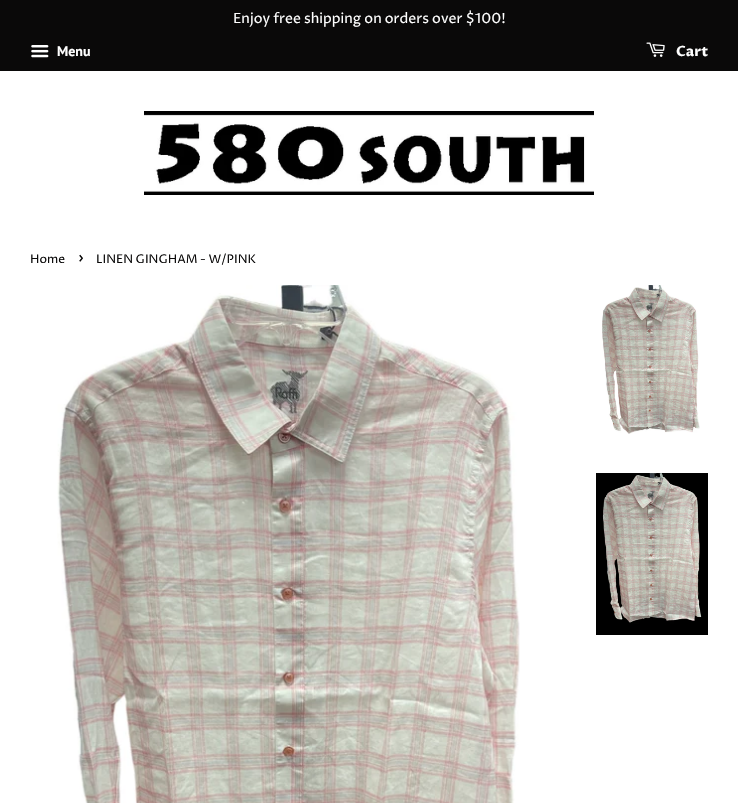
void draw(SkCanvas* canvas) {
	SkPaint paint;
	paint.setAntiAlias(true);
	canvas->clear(0xffffffff);
	paint.setColor(0xff0a0909);
	canvas->drawRect(SkRect::MakeXYWH(0, 0, 738, 71), paint);
	SkFont f1(fontMgr->matchFamilyStyle("Proza Libre", SkFontStyle::Normal()), 14);
	f1.setSubpixel(true);
	paint.setColor(0xffffffff);
	canvas->drawString("Enjoy free shipping on orders over $100!", 233, 23, f1, paint);
	canvas->drawImageRect(SkImages::DeferredFromEncodedData(SkData::MakeFromFileName("img1.png")), SkRect::MakeXYWH(31, 45, 18, 13), SkSamplingOptions());
	SkFont f2(fontMgr->matchFamilyStyle("PT Sans", SkFontStyle::Bold()), 14);
	f2.setSubpixel(true);
	canvas->drawString("Menu", 57, 56, f2, paint);
	canvas->drawImageRect(SkImages::DeferredFromEncodedData(SkData::MakeFromFileName("img2.png")), SkRect::MakeXYWH(646, 42, 19, 15), SkSamplingOptions());
	SkFont f3(fontMgr->matchFamilyStyle("Proza Libre", SkFontStyle::Bold()), 14);
	f3.setSubpixel(true);
	canvas->drawString("Cart", 676, 56, f3, paint);
	canvas->drawImageRect(SkImages::DeferredFromEncodedData(SkData::MakeFromFileName("img3.png")), SkRect::MakeXYWH(144, 111, 450, 84), SkSamplingOptions());
	SkFont f4(fontMgr->matchFamilyStyle("Proza Libre", SkFontStyle::Normal()), 12);
	f4.setSubpixel(true);
	paint.setColor(0xff0a0909);
	canvas->drawString("Home", 30, 263, f4, paint);
	SkFont f5(fontMgr->matchFamilyStyle("Proza Libre", SkFontStyle::Normal()), 17);
	f5.setSubpixel(true);
	canvas->drawString("›", 78, 263, f5, paint);
	canvas->drawString("LINEN GINGHAM - W/PINK", 96, 263, f4, paint);
	canvas->drawImageRect(SkImages::DeferredFromEncodedData(SkData::MakeFromFileName("img4.png")), SkRect::MakeXYWH(57, 285, 463, 518), SkSamplingOptions());
	canvas->drawImageRect(SkImages::DeferredFromEncodedData(SkData::MakeFromFileName("img5.png")), SkRect::MakeXYWH(602, 285, 98, 149), SkSamplingOptions());
	canvas->drawImageRect(SkImages::DeferredFromEncodedData(SkData::MakeFromFileName("img6.png")), SkRect::MakeXYWH(596, 473, 112, 162), SkSamplingOptions());
}
